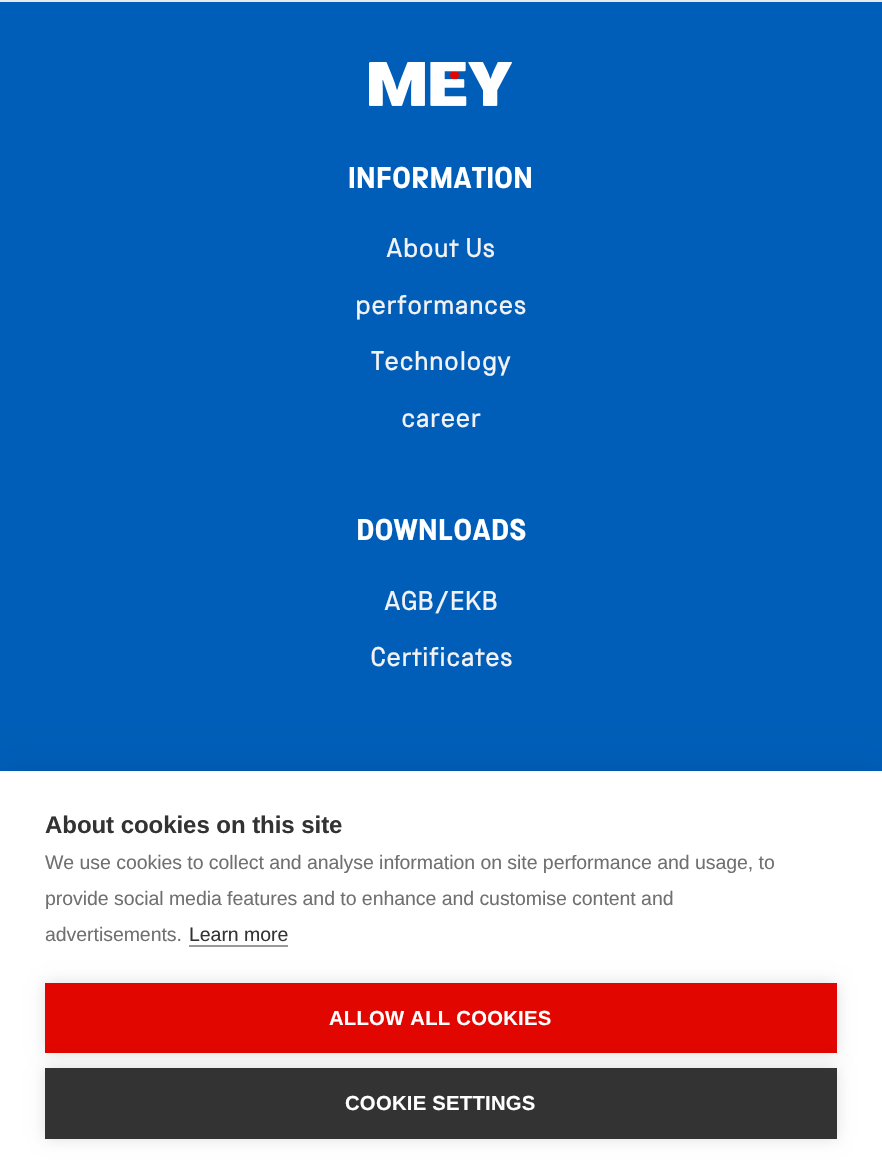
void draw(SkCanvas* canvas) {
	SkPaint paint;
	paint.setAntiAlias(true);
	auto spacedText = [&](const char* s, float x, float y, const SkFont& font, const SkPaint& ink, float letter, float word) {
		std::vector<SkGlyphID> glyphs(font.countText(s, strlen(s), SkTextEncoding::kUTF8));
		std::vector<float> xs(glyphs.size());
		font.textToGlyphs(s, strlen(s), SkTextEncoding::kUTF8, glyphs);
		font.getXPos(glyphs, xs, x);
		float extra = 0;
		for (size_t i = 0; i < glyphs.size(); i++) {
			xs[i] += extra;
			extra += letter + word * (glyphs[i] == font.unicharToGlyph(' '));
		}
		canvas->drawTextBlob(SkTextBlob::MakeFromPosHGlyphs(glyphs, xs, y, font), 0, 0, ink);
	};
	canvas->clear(0xffe7e9eb);
	paint.setColor(0xff005eb8);
	canvas->drawRect(SkRect::MakeXYWH(0, 2, 882, 769), paint);
	canvas->drawImageRect(SkImages::DeferredFromEncodedData(SkData::MakeFromFileName("img1.png")), SkRect::MakeXYWH(369, 62, 143, 44), SkSamplingOptions());
	SkFont f1(fontMgr->matchFamilyStyle("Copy", SkFontStyle::Bold()), 30);
	f1.setSubpixel(true);
	paint.setColor(0xffffffff);
	spacedText("INFORMATION", 348, 188, f1, paint, -0.05, 0);
	SkFont f2(fontMgr->matchFamilyStyle("Copy", SkFontStyle::Normal()), 27);
	f2.setSubpixel(true);
	paint.setColor(0xfff2f2f4);
	spacedText("About Us", 386, 257, f2, paint, -0.05, 0);
	spacedText("performances", 355, 314, f2, paint, -0.05, 0);
	spacedText("Technology", 371, 370, f2, paint, -0.05, 0);
	spacedText("career", 401, 427, f2, paint, -0.05, 0);
	paint.setColor(0xffffffff);
	spacedText("DOWNLOADS", 356, 540, f1, paint, -0.05, 0);
	paint.setColor(0xfff2f2f4);
	spacedText("AGB/EKB", 384, 610, f2, paint, -0.05, 0);
	spacedText("Certificates", 370, 666, f2, paint, -0.05, 0);
	paint.setColor(0x1a000000);
	paint.setMaskFilter(SkMaskFilter::MakeBlur(kNormal_SkBlurStyle, 15));
	canvas->drawRect(SkRect::MakeXYWH(0, 771, 882, 405), paint);
	paint.setMaskFilter(nullptr);
	paint.setColor(0xffffffff);
	canvas->drawRect(SkRect::MakeXYWH(0, 771, 882, 405), paint);
	SkFont f3(fontMgr->matchFamilyStyle("Liberation Sans", SkFontStyle::Bold()), 24);
	f3.setSubpixel(true);
	paint.setColor(0xff333333);
	spacedText("About cookies on this site", 45, 833, f3, paint, -0.05, 0);
	SkFont f4(fontMgr->matchFamilyStyle("Liberation Sans", SkFontStyle::Normal()), 19.5);
	f4.setSubpixel(true);
	paint.setColor(0xff707070);
	spacedText("We use cookies to collect and analyse information on site performance and usage, to", 45, 869, f4, paint, -0.05, 0);
	spacedText("provide social media features and to enhance and customise content and", 45, 905, f4, paint, -0.05, 0);
	spacedText("advertisements.", 45, 941, f4, paint, -0.05, 0);
	paint.setColor(0xff333333);
	spacedText("Learn more", 189, 941, f4, paint, -0.05, 0);
	paint.setColor(0xff999999);
	canvas->drawRect(SkRect::MakeXYWH(189, 945, 99, 2), paint);
	paint.setColor(0x1f000000);
	paint.setMaskFilter(SkMaskFilter::MakeBlur(kNormal_SkBlurStyle, 7.5));
	canvas->drawRect(SkRect::MakeXYWH(45, 983, 792, 70), paint);
	paint.setMaskFilter(nullptr);
	paint.setColor(0xffe10600);
	canvas->drawRect(SkRect::MakeXYWH(45, 983, 792, 70), paint);
	SkFont f5(fontMgr->matchFamilyStyle("Liberation Sans", SkFontStyle::Bold()), 20.25);
	f5.setSubpixel(true);
	paint.setColor(0xffffffff);
	spacedText("ALLOW ALL COOKIES", 329, 1025, f5, paint, 0.25, 0);
	paint.setColor(0x1f000000);
	paint.setMaskFilter(SkMaskFilter::MakeBlur(kNormal_SkBlurStyle, 7.5));
	canvas->drawRect(SkRect::MakeXYWH(45, 1068, 792, 71), paint);
	paint.setMaskFilter(nullptr);
	paint.setColor(0xff333333);
	canvas->drawRect(SkRect::MakeXYWH(45, 1068, 792, 71), paint);
	paint.setColor(0xffffffff);
	spacedText("COOKIE SETTINGS", 345, 1110, f5, paint, 0.25, 0);
}
